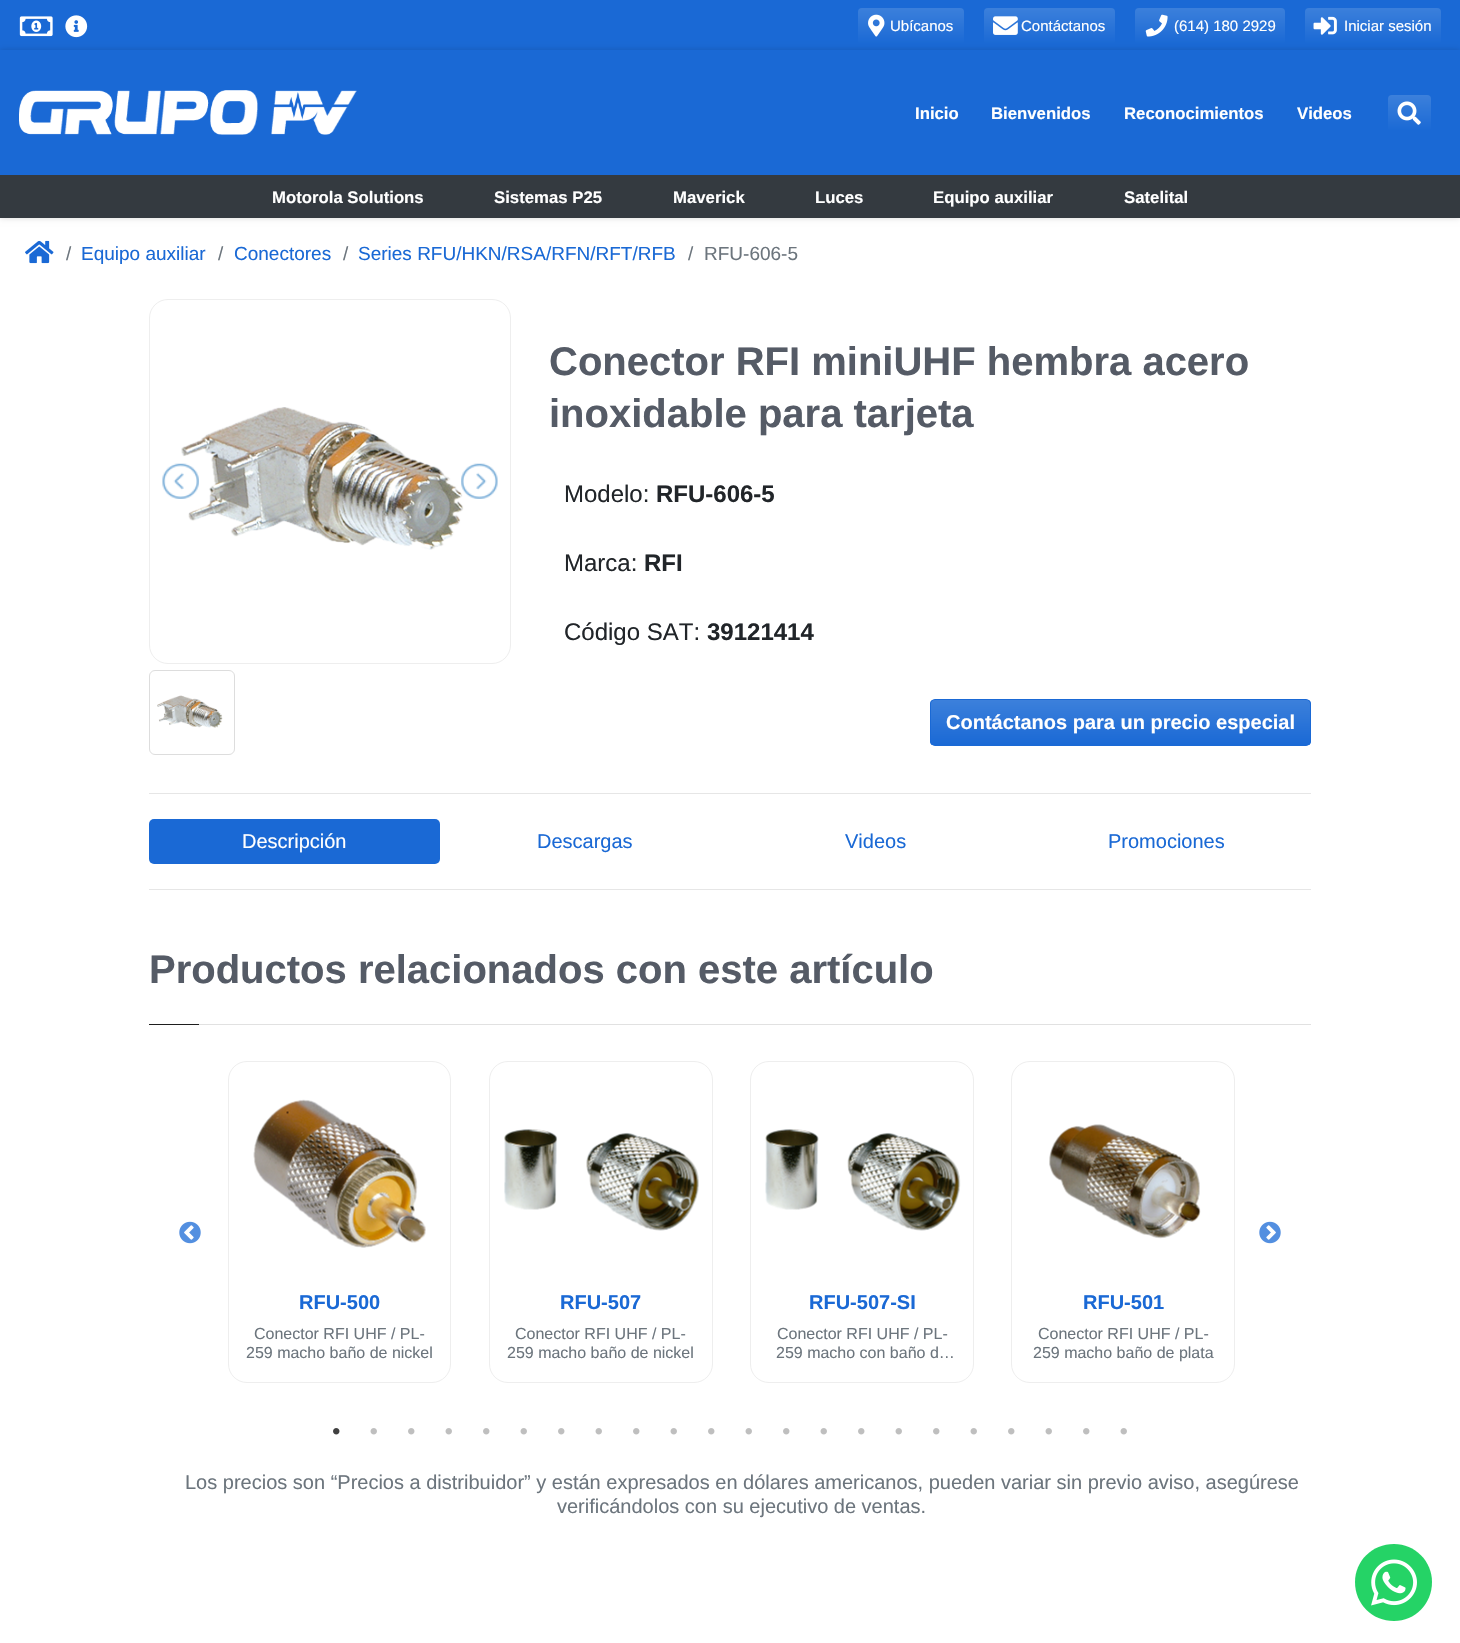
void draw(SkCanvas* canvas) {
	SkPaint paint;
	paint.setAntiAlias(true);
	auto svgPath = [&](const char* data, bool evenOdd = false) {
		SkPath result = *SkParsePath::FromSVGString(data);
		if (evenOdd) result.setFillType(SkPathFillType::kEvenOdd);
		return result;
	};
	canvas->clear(0xffffffff);
	paint.setColor(0xff1a69d5);
	canvas->drawRect(SkRect::MakeXYWH(0, 0, 1460, 50), paint);
	canvas->drawImageRect(SkImages::DeferredFromEncodedData(SkData::MakeFromFileName("img1.png")), SkRect::MakeXYWH(19, 16, 34, 21), SkSamplingOptions());
	canvas->drawImageRect(SkImages::DeferredFromEncodedData(SkData::MakeFromFileName("img2.png")), SkRect::MakeXYWH(65, 15, 23, 23), SkSamplingOptions());
	{
		const SkColor colors[] = {0xff3c80db, 0xff1a69d5};
		const float stops[] = {0, 1};
		const SkPoint ends[] = {{911, 7.5}, {911, 44}};
		paint.setShader(SkGradientShader::MakeLinear(ends, colors, stops, 2, SkTileMode::kClamp));
		paint.setAlpha(255);
	}
	canvas->drawRoundRect(SkRect::MakeXYWH(858, 8, 106, 36), 4, 4, paint);
	canvas->drawImageRect(SkImages::DeferredFromEncodedData(SkData::MakeFromFileName("img3.png")), SkRect::MakeXYWH(868, 14, 17, 23), SkSamplingOptions());
	SkFont f1(fontMgr->matchFamilyStyle("Arimo", SkFontStyle::Normal()), 15);
	f1.setSubpixel(true);
	paint.setShader(nullptr);
	paint.setColor(0xffffffff);
	canvas->drawString("Ubícanos", 890, 31, f1, paint);
	{
		const SkColor colors[] = {0xff3c80db, 0xff1a69d5};
		const float stops[] = {0, 1};
		const SkPoint ends[] = {{1049, 7.5}, {1049, 44}};
		paint.setShader(SkGradientShader::MakeLinear(ends, colors, stops, 2, SkTileMode::kClamp));
		paint.setAlpha(255);
	}
	canvas->drawRoundRect(SkRect::MakeXYWH(984, 8, 131, 36), 4, 4, paint);
	canvas->drawImageRect(SkImages::DeferredFromEncodedData(SkData::MakeFromFileName("img4.png")), SkRect::MakeXYWH(993, 16, 25, 19), SkSamplingOptions());
	paint.setShader(nullptr);
	paint.setColor(0xffffffff);
	canvas->drawString("Contáctanos", 1021, 31, f1, paint);
	{
		const SkColor colors[] = {0xff3c80db, 0xff1a69d5};
		const float stops[] = {0, 1};
		const SkPoint ends[] = {{1210, 7.5}, {1210, 44}};
		paint.setShader(SkGradientShader::MakeLinear(ends, colors, stops, 2, SkTileMode::kClamp));
		paint.setAlpha(255);
	}
	canvas->drawRoundRect(SkRect::MakeXYWH(1135, 8, 150, 36), 4, 4, paint);
	canvas->drawImageRect(SkImages::DeferredFromEncodedData(SkData::MakeFromFileName("img5.png")), SkRect::MakeXYWH(1145, 14, 23, 23), SkSamplingOptions());
	paint.setShader(nullptr);
	paint.setColor(0xffffffff);
	canvas->drawString("(614) 180 2929", 1174, 31, f1, paint);
	{
		const SkColor colors[] = {0xff3c80db, 0xff1a69d5};
		const float stops[] = {0, 1};
		const SkPoint ends[] = {{1373, 7.5}, {1373, 44}};
		paint.setShader(SkGradientShader::MakeLinear(ends, colors, stops, 2, SkTileMode::kClamp));
		paint.setAlpha(255);
	}
	canvas->drawRoundRect(SkRect::MakeXYWH(1305, 8, 136, 36), 4, 4, paint);
	canvas->drawImageRect(SkImages::DeferredFromEncodedData(SkData::MakeFromFileName("img6.png")), SkRect::MakeXYWH(1313, 16, 24, 19), SkSamplingOptions());
	paint.setShader(nullptr);
	paint.setColor(0xffffffff);
	canvas->drawString("Iniciar sesión", 1344, 31, f1, paint);
	paint.setColor(0x26000000);
	paint.setMaskFilter(SkMaskFilter::MakeBlur(kNormal_SkBlurStyle, 3));
	canvas->drawRect(SkRect::MakeXYWH(0, 50, 1460, 168), paint);
	paint.setMaskFilter(nullptr);
	paint.setColor(0xff1a69d5);
	canvas->drawRect(SkRect::MakeXYWH(0, 50, 1460, 125), paint);
	canvas->drawImageRect(SkImages::DeferredFromEncodedData(SkData::MakeFromFileName("img7.png")), SkRect::MakeXYWH(19, 90, 338, 45), SkSamplingOptions());
	SkFont f2(fontMgr->matchFamilyStyle("Liberation Sans", SkFontStyle::Bold()), 16.75);
	f2.setSubpixel(true);
	paint.setColor(0xffffffff);
	canvas->drawString("Inicio", 915, 119, f2, paint);
	canvas->drawString("Bienvenidos", 991, 119, f2, paint);
	canvas->drawString("Reconocimientos", 1124, 119, f2, paint);
	canvas->drawString("Videos", 1297, 119, f2, paint);
	{
		const SkColor colors[] = {0xff3c80db, 0xff1a69d5};
		const float stops[] = {0, 1};
		const SkPoint ends[] = {{1409, 95}, {1409, 131}};
		paint.setShader(SkGradientShader::MakeLinear(ends, colors, stops, 2, SkTileMode::kClamp));
		paint.setAlpha(255);
	}
	canvas->drawRoundRect(SkRect::MakeXYWH(1388, 95, 43, 36), 4, 4, paint);
	canvas->drawImageRect(SkImages::DeferredFromEncodedData(SkData::MakeFromFileName("img8.png")), SkRect::MakeXYWH(1397, 101, 24, 24), SkSamplingOptions());
	paint.setShader(nullptr);
	paint.setColor(0xff343a40);
	canvas->drawRect(SkRect::MakeXYWH(0, 175, 1460, 43), paint);
	paint.setColor(0xffffffff);
	canvas->drawString("Motorola Solutions", 272, 203, f2, paint);
	canvas->drawString("Sistemas P25", 494, 203, f2, paint);
	canvas->drawString("Maverick", 673, 203, f2, paint);
	canvas->drawString("Luces", 815, 203, f2, paint);
	canvas->drawString("Equipo auxiliar", 933, 203, f2, paint);
	canvas->drawString("Satelital", 1124, 203, f2, paint);
	canvas->drawImageRect(SkImages::DeferredFromEncodedData(SkData::MakeFromFileName("img9.png")), SkRect::MakeXYWH(25, 240, 29, 24), SkSamplingOptions());
	SkFont f3(fontMgr->matchFamilyStyle("Arimo", SkFontStyle::Normal()), 19);
	f3.setSubpixel(true);
	paint.setColor(0xff6c757d);
	canvas->drawString("/", 66, 260, f3, paint);
	paint.setColor(0xff1a69d5);
	canvas->drawString("Equipo auxiliar", 81, 260, f3, paint);
	paint.setColor(0xff6c757d);
	canvas->drawString("/", 218, 260, f3, paint);
	paint.setColor(0xff1a69d5);
	canvas->drawString("Conectores", 234, 260, f3, paint);
	paint.setColor(0xff6c757d);
	canvas->drawString("/", 343, 260, f3, paint);
	paint.setColor(0xff1a69d5);
	canvas->drawString("Series RFU/HKN/RSA/RFN/RFT/RFB", 358, 260, f3, paint);
	paint.setColor(0xff6c757d);
	canvas->drawString("/", 688, 260, f3, paint);
	canvas->drawString("RFU-606-5", 704, 260, f3, paint);
	paint.setStroke(true);
	paint.setStrokeWidth(1);
	paint.setColor(0xffeeeeee);
	canvas->drawRoundRect(SkRect::MakeXYWH(149.5, 299.5, 361, 364), 18.5, 18.5, paint);
	canvas->drawImageRect(SkImages::DeferredFromEncodedData(SkData::MakeFromFileName("img10.png")), SkRect::MakeXYWH(181, 407, 283, 143), SkSamplingOptions());
	canvas->drawImageRect(SkImages::DeferredFromEncodedData(SkData::MakeFromFileName("img11.png")), SkRect::MakeXYWH(162, 463, 37, 36), SkSamplingOptions());
	canvas->drawImageRect(SkImages::DeferredFromEncodedData(SkData::MakeFromFileName("img12.png")), SkRect::MakeXYWH(461, 463, 37, 36), SkSamplingOptions());
	paint.setColor(0xffdddddd);
	canvas->drawRoundRect(SkRect::MakeXYWH(149.5, 670.5, 85, 84), 5.5, 5.5, paint);
	canvas->drawImageRect(SkImages::DeferredFromEncodedData(SkData::MakeFromFileName("img13.png")), SkRect::MakeXYWH(157, 695, 66, 33), SkSamplingOptions());
	SkFont f4(fontMgr->matchFamilyStyle("Arimo", SkFontStyle::Bold()), 40);
	f4.setSubpixel(true);
	paint.setStroke(false);
	paint.setColor(0xff555b66);
	canvas->drawString("Conector RFI miniUHF hembra acero", 549, 375, f4, paint);
	canvas->drawString("inoxidable para tarjeta", 549, 427, f4, paint);
	SkFont f5(fontMgr->matchFamilyStyle("Arimo", SkFontStyle::Normal()), 24);
	f5.setSubpixel(true);
	paint.setColor(0xff212529);
	canvas->drawString("Modelo:", 564, 502, f5, paint);
	SkFont f6(fontMgr->matchFamilyStyle("Arimo", SkFontStyle::Bold()), 24);
	f6.setSubpixel(true);
	canvas->drawString("RFU-606-5", 656, 502, f6, paint);
	canvas->drawString("Marca:", 564, 571, f5, paint);
	canvas->drawString("RFI", 644, 571, f6, paint);
	canvas->drawString("Código SAT:", 564, 640, f5, paint);
	canvas->drawString("39121414", 707, 640, f6, paint);
	canvas->save();
	canvas->clipPath(svgPath("M935 699H1306C1309 699 1311 701 1311 704V741C1311 744 1309 746 1306 746H935C932 746 930 744 930 741V704C930 701 932 699 935 699Z"), true);
	{
		const SkColor colors[] = {0xff3c80db, 0xff1a69d5};
		const float stops[] = {0, 1};
		const SkPoint ends[] = {{1121, 700}, {1121, 745}};
		paint.setShader(SkGradientShader::MakeLinear(ends, colors, stops, 2, SkTileMode::kClamp));
		paint.setAlpha(255);
	}
	canvas->drawRect(SkRect::MakeXYWH(930, 700, 381, 45), paint);
	canvas->restore();
	paint.setStroke(true);
	paint.setShader(nullptr);
	paint.setColor(0xff1a69d5);
	canvas->drawRoundRect(SkRect::MakeXYWH(930.5, 699.5, 380, 46), 4.5, 4.5, paint);
	SkFont f7(fontMgr->matchFamilyStyle("Arimo", SkFontStyle::Bold()), 20);
	f7.setSubpixel(true);
	paint.setStroke(false);
	paint.setColor(0xffffffff);
	canvas->drawString("Contáctanos para un precio especial", 946, 729, f7, paint);
	paint.setColor(0xffe6e6e6);
	canvas->drawRect(SkRect::MakeXYWH(149, 793, 1162, 1), paint);
	paint.setColor(0xff1a69d5);
	canvas->drawRoundRect(SkRect::MakeXYWH(149, 819, 291, 45), 5, 5, paint);
	SkFont f8(fontMgr->matchFamilyStyle("Arimo", SkFontStyle::Normal()), 20);
	f8.setSubpixel(true);
	paint.setColor(0xffffffff);
	canvas->drawString("Descripción", 242, 848, f8, paint);
	paint.setColor(0xff1a69d5);
	canvas->drawString("Descargas", 537, 848, f8, paint);
	canvas->drawString("Videos", 845, 848, f8, paint);
	canvas->drawString("Promociones", 1108, 848, f8, paint);
	paint.setColor(0xffe6e6e6);
	canvas->drawRect(SkRect::MakeXYWH(149, 889, 1162, 1), paint);
	paint.setColor(0xffe1e1e1);
	canvas->drawRect(SkRect::MakeXYWH(199, 1024, 1112, 1), paint);
	paint.setColor(0xff555b66);
	canvas->drawString("Productos relacionados con este artículo", 149, 983, f4, paint);
	paint.setColor(0xff1e1e1e);
	canvas->drawRect(SkRect::MakeXYWH(149, 1024, 50, 1), paint);
	canvas->drawImageRect(SkImages::DeferredFromEncodedData(SkData::MakeFromFileName("img14.png")), SkRect::MakeXYWH(179, 1221, 22, 23), SkSamplingOptions());
	canvas->drawImageRect(SkImages::DeferredFromEncodedData(SkData::MakeFromFileName("img15.png")), SkRect::MakeXYWH(1259, 1221, 22, 23), SkSamplingOptions());
	paint.setStroke(true);
	paint.setColor(0xffeeeeee);
	canvas->drawRoundRect(SkRect::MakeXYWH(228.5, 1061.5, 222, 321), 18.5, 18.5, paint);
	canvas->drawImageRect(SkImages::DeferredFromEncodedData(SkData::MakeFromFileName("img16.png")), SkRect::MakeXYWH(253, 1099, 173, 149), SkSamplingOptions());
	paint.setStroke(false);
	paint.setColor(0xff1a69d5);
	canvas->drawString("RFU-500", 299, 1309, f7, paint);
	SkFont f9(fontMgr->matchFamilyStyle("Arimo", SkFontStyle::Normal()), 16);
	f9.setSubpixel(true);
	paint.setColor(0xff6c757d);
	canvas->drawString("Conector RFI UHF / PL-", 254, 1339, f9, paint);
	canvas->drawString("259 macho baño de nickel", 246, 1358, f9, paint);
	paint.setStroke(true);
	paint.setColor(0xffeeeeee);
	canvas->drawRoundRect(SkRect::MakeXYWH(489.5, 1061.5, 223, 321), 18.5, 18.5, paint);
	canvas->drawImageRect(SkImages::DeferredFromEncodedData(SkData::MakeFromFileName("img17.png")), SkRect::MakeXYWH(504, 1129, 195, 102), SkSamplingOptions());
	paint.setStroke(false);
	paint.setColor(0xff1a69d5);
	canvas->drawString("RFU-507", 560, 1309, f7, paint);
	paint.setColor(0xff6c757d);
	canvas->drawString("Conector RFI UHF / PL-", 515, 1339, f9, paint);
	canvas->drawString("259 macho baño de nickel", 507, 1358, f9, paint);
	paint.setStroke(true);
	paint.setColor(0xffeeeeee);
	canvas->drawRoundRect(SkRect::MakeXYWH(750.5, 1061.5, 223, 321), 18.5, 18.5, paint);
	canvas->drawImageRect(SkImages::DeferredFromEncodedData(SkData::MakeFromFileName("img18.png")), SkRect::MakeXYWH(765, 1129, 196, 102), SkSamplingOptions());
	paint.setStroke(false);
	paint.setColor(0xff1a69d5);
	canvas->drawString("RFU-507-SI", 809, 1309, f7, paint);
	paint.setColor(0xff6c757d);
	canvas->drawString("Conector RFI UHF / PL-", 777, 1339, f9, paint);
	canvas->drawString("259 macho con baño d…", 776, 1358, f9, paint);
	paint.setStroke(true);
	paint.setColor(0xffeeeeee);
	canvas->drawRoundRect(SkRect::MakeXYWH(1011.5, 1061.5, 223, 321), 18.5, 18.5, paint);
	canvas->drawImageRect(SkImages::DeferredFromEncodedData(SkData::MakeFromFileName("img19.png")), SkRect::MakeXYWH(1049, 1124, 152, 115), SkSamplingOptions());
	paint.setStroke(false);
	paint.setColor(0xff1a69d5);
	canvas->drawString("RFU-501", 1083, 1309, f7, paint);
	paint.setColor(0xff6c757d);
	canvas->drawString("Conector RFI UHF / PL-", 1038, 1339, f9, paint);
	canvas->drawString("259 macho baño de plata", 1033, 1358, f9, paint);
	canvas->drawImageRect(SkImages::DeferredFromEncodedData(SkData::MakeFromFileName("img20.png")), SkRect::MakeXYWH(333, 1428, 7, 7), SkSamplingOptions());
	canvas->drawImageRect(SkImages::DeferredFromEncodedData(SkData::MakeFromFileName("img21.png")), SkRect::MakeXYWH(370, 1428, 7, 7), SkSamplingOptions());
	canvas->drawImageRect(SkImages::DeferredFromEncodedData(SkData::MakeFromFileName("img22.png")), SkRect::MakeXYWH(408, 1428, 7, 7), SkSamplingOptions());
	canvas->drawImageRect(SkImages::DeferredFromEncodedData(SkData::MakeFromFileName("img21.png")), SkRect::MakeXYWH(445, 1428, 7, 7), SkSamplingOptions());
	canvas->drawImageRect(SkImages::DeferredFromEncodedData(SkData::MakeFromFileName("img22.png")), SkRect::MakeXYWH(483, 1428, 7, 7), SkSamplingOptions());
	canvas->drawImageRect(SkImages::DeferredFromEncodedData(SkData::MakeFromFileName("img21.png")), SkRect::MakeXYWH(520, 1428, 7, 7), SkSamplingOptions());
	canvas->drawImageRect(SkImages::DeferredFromEncodedData(SkData::MakeFromFileName("img22.png")), SkRect::MakeXYWH(558, 1428, 7, 7), SkSamplingOptions());
	canvas->drawImageRect(SkImages::DeferredFromEncodedData(SkData::MakeFromFileName("img21.png")), SkRect::MakeXYWH(595, 1428, 7, 7), SkSamplingOptions());
	canvas->drawImageRect(SkImages::DeferredFromEncodedData(SkData::MakeFromFileName("img22.png")), SkRect::MakeXYWH(633, 1428, 7, 7), SkSamplingOptions());
	canvas->drawImageRect(SkImages::DeferredFromEncodedData(SkData::MakeFromFileName("img21.png")), SkRect::MakeXYWH(670, 1428, 7, 7), SkSamplingOptions());
	canvas->drawImageRect(SkImages::DeferredFromEncodedData(SkData::MakeFromFileName("img22.png")), SkRect::MakeXYWH(708, 1428, 7, 7), SkSamplingOptions());
	canvas->drawImageRect(SkImages::DeferredFromEncodedData(SkData::MakeFromFileName("img21.png")), SkRect::MakeXYWH(745, 1428, 7, 7), SkSamplingOptions());
	canvas->drawImageRect(SkImages::DeferredFromEncodedData(SkData::MakeFromFileName("img22.png")), SkRect::MakeXYWH(783, 1428, 7, 7), SkSamplingOptions());
	canvas->drawImageRect(SkImages::DeferredFromEncodedData(SkData::MakeFromFileName("img21.png")), SkRect::MakeXYWH(820, 1428, 7, 7), SkSamplingOptions());
	canvas->drawImageRect(SkImages::DeferredFromEncodedData(SkData::MakeFromFileName("img22.png")), SkRect::MakeXYWH(858, 1428, 7, 7), SkSamplingOptions());
	canvas->drawImageRect(SkImages::DeferredFromEncodedData(SkData::MakeFromFileName("img21.png")), SkRect::MakeXYWH(895, 1428, 7, 7), SkSamplingOptions());
	canvas->drawImageRect(SkImages::DeferredFromEncodedData(SkData::MakeFromFileName("img22.png")), SkRect::MakeXYWH(933, 1428, 7, 7), SkSamplingOptions());
	canvas->drawImageRect(SkImages::DeferredFromEncodedData(SkData::MakeFromFileName("img21.png")), SkRect::MakeXYWH(970, 1428, 7, 7), SkSamplingOptions());
	canvas->drawImageRect(SkImages::DeferredFromEncodedData(SkData::MakeFromFileName("img22.png")), SkRect::MakeXYWH(1008, 1428, 7, 7), SkSamplingOptions());
	canvas->drawImageRect(SkImages::DeferredFromEncodedData(SkData::MakeFromFileName("img21.png")), SkRect::MakeXYWH(1045, 1428, 7, 7), SkSamplingOptions());
	canvas->drawImageRect(SkImages::DeferredFromEncodedData(SkData::MakeFromFileName("img22.png")), SkRect::MakeXYWH(1083, 1428, 7, 7), SkSamplingOptions());
	canvas->drawImageRect(SkImages::DeferredFromEncodedData(SkData::MakeFromFileName("img21.png")), SkRect::MakeXYWH(1120, 1428, 7, 7), SkSamplingOptions());
	canvas->drawString("Los precios son “Precios a distribuidor” y están expresados en dólares americanos, pueden variar sin previo aviso, asegúrese", 185, 1489, f8, paint);
	canvas->drawString("verificándolos con su ejecutivo de ventas.", 557, 1513, f8, paint);
	paint.setColor(0xff25d366);
	canvas->drawPath(svgPath("M1394 1544C1372 1544 1355 1561 1355 1582C1355 1604 1372 1621 1394 1621C1415 1621 1432 1604 1432 1582C1432 1561 1415 1544 1394 1544Z"), paint);
	canvas->drawImageRect(SkImages::DeferredFromEncodedData(SkData::MakeFromFileName("img23.png")), SkRect::MakeXYWH(1371, 1559, 46, 47), SkSamplingOptions());
}
